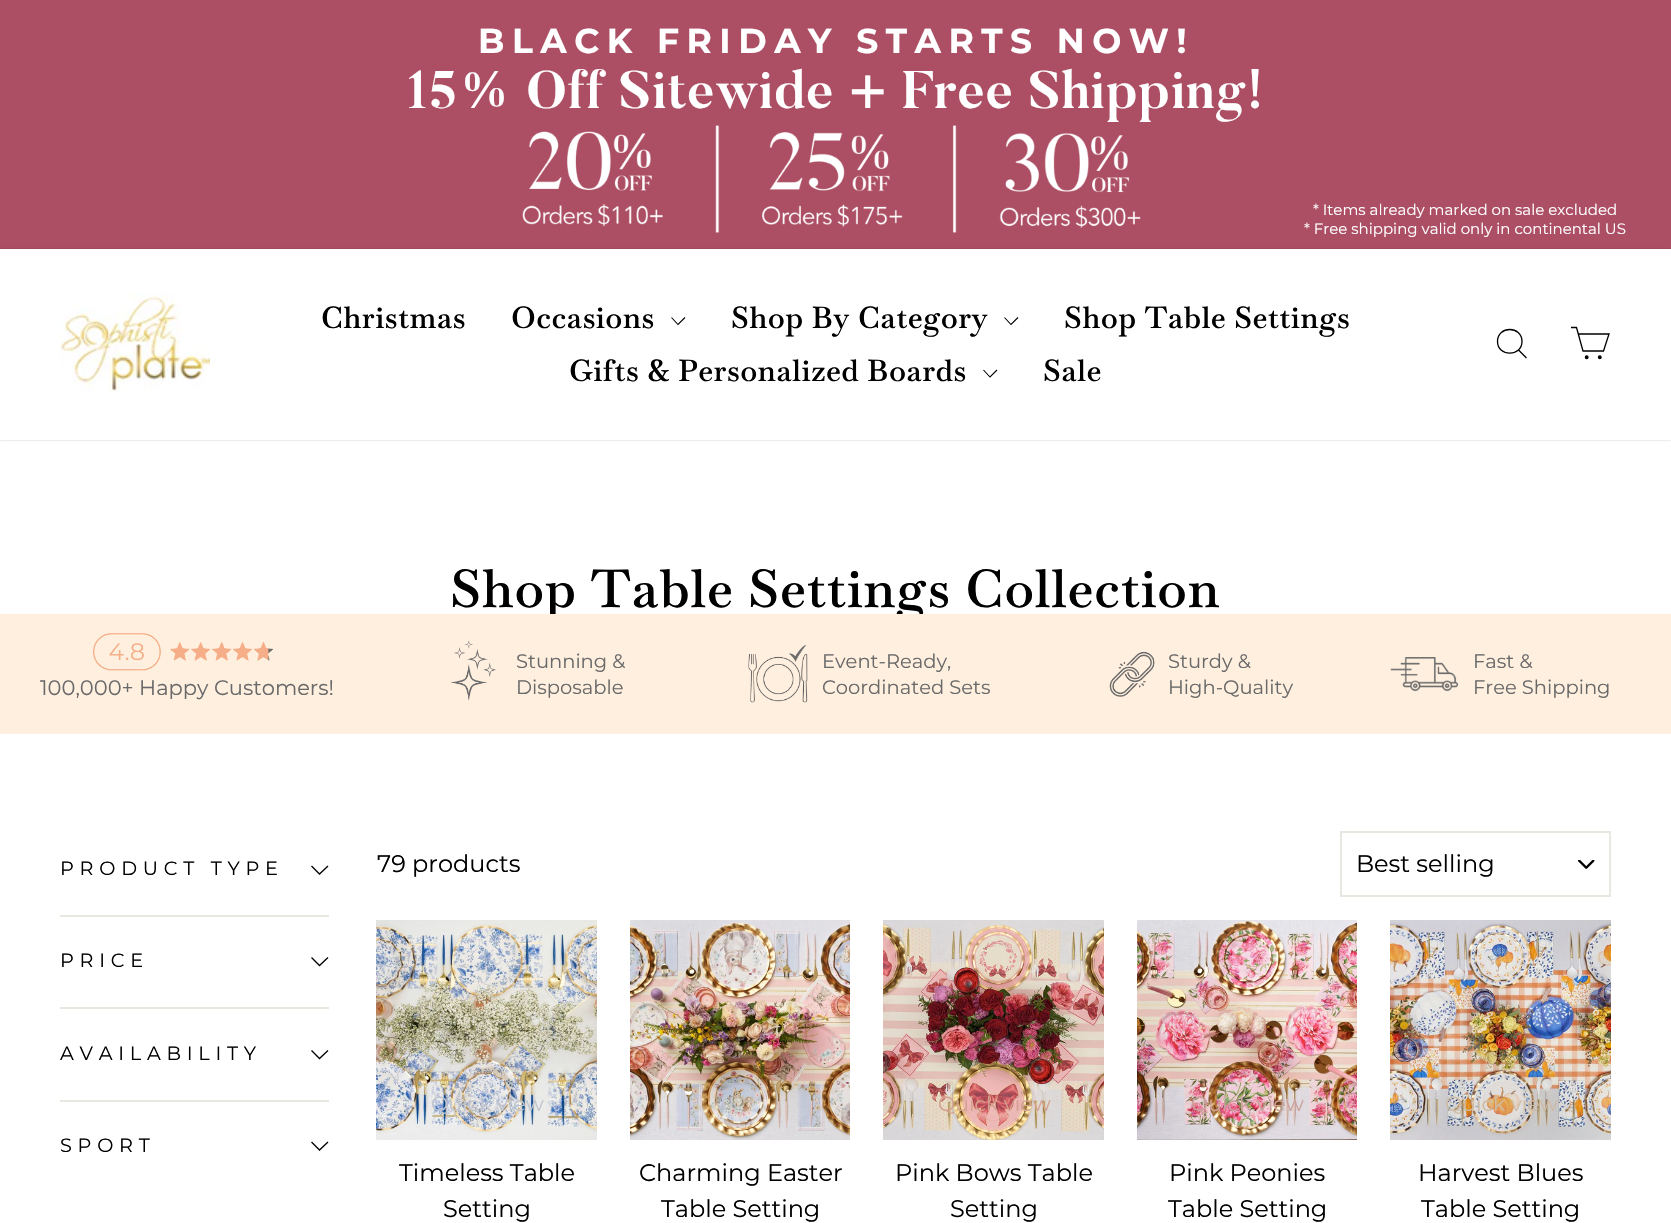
void draw(SkCanvas* canvas) {
	SkPaint paint;
	paint.setAntiAlias(true);
	auto spacedText = [&](const char* s, float x, float y, const SkFont& font, const SkPaint& ink, float letter, float word) {
		std::vector<SkGlyphID> glyphs(font.countText(s, strlen(s), SkTextEncoding::kUTF8));
		std::vector<float> xs(glyphs.size());
		font.textToGlyphs(s, strlen(s), SkTextEncoding::kUTF8, glyphs);
		font.getXPos(glyphs, xs, x);
		float extra = 0;
		for (size_t i = 0; i < glyphs.size(); i++) {
			xs[i] += extra;
			extra += letter + word * (glyphs[i] == font.unicharToGlyph(' '));
		}
		canvas->drawTextBlob(SkTextBlob::MakeFromPosHGlyphs(glyphs, xs, y, font), 0, 0, ink);
	};
	auto svgPath = [&](const char* data, bool evenOdd = false) {
		SkPath result = *SkParsePath::FromSVGString(data);
		if (evenOdd) result.setFillType(SkPathFillType::kEvenOdd);
		return result;
	};
	canvas->clear(0xffffffff);
	paint.setColor(0xffac4f64);
	canvas->drawRect(SkRect::MakeXYWH(0, 0, 1671, 249), paint);
	SkFont f1(fontMgr->matchFamilyStyle("Montserrat", SkFontStyle::Bold()), 34.5);
	f1.setSubpixel(true);
	paint.setColor(0xffffffff);
	spacedText("BLACK FRIDAY STARTS NOW!", 478, 53, f1, paint, 7.5, 0);
	SkFont f2(fontMgr->matchFamilyStyle("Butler", SkFontStyle::Bold()), 52.5);
	f2.setSubpixel(true);
	spacedText("15% Off Sitewide + Free Shipping!", 406, 108, f2, paint, 0.75, 0);
	canvas->drawImageRect(SkImages::DeferredFromEncodedData(SkData::MakeFromFileName("img1.png")), SkRect::MakeXYWH(522, 125, 619, 108), SkSamplingOptions());
	SkFont f3(fontMgr->matchFamilyStyle("Montserrat", SkFontStyle::Normal()), 15);
	f3.setSubpixel(true);
	canvas->drawString("* Items already marked on sale excluded", 1313, 215, f3, paint);
	canvas->drawString("* Free shipping valid only in continental US", 1304, 234, f3, paint);
	paint.setColor(0x33000000);
	paint.setMaskFilter(SkMaskFilter::MakeBlur(kNormal_SkBlurStyle, 1));
	canvas->drawRect(SkRect::MakeXYWH(0, 249, 1671, 191), paint);
	paint.setMaskFilter(nullptr);
	paint.setColor(0xffffffff);
	canvas->drawRect(SkRect::MakeXYWH(0, 249, 1671, 191), paint);
	canvas->drawImageRect(SkImages::DeferredFromEncodedData(SkData::MakeFromFileName("img2.png")), SkRect::MakeXYWH(60, 293, 150, 99), SkSamplingOptions());
	SkFont f4(fontMgr->matchFamilyStyle("Baskervville", SkFontStyle(600, SkFontStyle::kNormal_Width, SkFontStyle::kUpright_Slant)), 30);
	f4.setSubpixel(true);
	paint.setColor(0xff000000);
	spacedText("Christmas", 321, 328, f4, paint, 0.75, 0);
	spacedText("Occasions", 511, 328, f4, paint, 0.75, 0);
	paint.setStroke(true);
	paint.setStrokeWidth(1.1);
	canvas->drawPath(svgPath("M671.5 317.5L678 324.5L685 317.5"), paint);
	paint.setStroke(false);
	spacedText("Shop By Category", 731, 328, f4, paint, 0.75, 0);
	paint.setStroke(true);
	canvas->drawPath(svgPath("M1004.5 317.5L1011 324.5L1018 317.5"), paint);
	paint.setStroke(false);
	spacedText("Shop Table Settings", 1064, 328, f4, paint, 0.75, 0);
	spacedText("Gifts & Personalized Boards", 569, 381, f4, paint, 0.75, 0);
	paint.setStroke(true);
	canvas->drawPath(svgPath("M983.5 370L990 377L997 370"), paint);
	paint.setStroke(false);
	spacedText("Sale", 1043, 381, f4, paint, 0.75, 0);
	paint.setStroke(true);
	paint.setStrokeWidth(1.3);
	canvas->drawPath(svgPath("M1522 341.5C1522 357 1497.5 357 1497.5 341.5C1497.5 325.5 1522 325.5 1522 341.5ZM1526.5 358L1518.5 350"), paint);
	canvas->drawPath(svgPath("M1578 334H1609L1603.5 351H1583L1576.5 327.5H1571"), paint);
	paint.setStroke(false);
	canvas->drawCircle(1586.7, 357.3, 1.3, paint);
	paint.setStroke(true);
	canvas->drawCircle(1586.7, 357.3, 1.3, paint);
	paint.setStroke(false);
	canvas->drawCircle(1599.8, 357.3, 1.3, paint);
	paint.setStroke(true);
	canvas->drawCircle(1599.8, 357.3, 1.3, paint);
	SkFont f5(fontMgr->matchFamilyStyle("Baskervville", SkFontStyle(600, SkFontStyle::kNormal_Width, SkFontStyle::kUpright_Slant)), 52.5);
	f5.setSubpixel(true);
	paint.setStroke(false);
	spacedText("Shop Table Settings Collection", 450, 607, f5, paint, 1.3, 0);
	paint.setColor(0xffffefdf);
	canvas->drawRect(SkRect::MakeXYWH(0, 614, 1671, 120), paint);
	canvas->drawImageRect(SkImages::DeferredFromEncodedData(SkData::MakeFromFileName("img3.png")), SkRect::MakeXYWH(93, 633, 180, 38), SkSamplingOptions());
	SkFont f6(fontMgr->matchFamilyStyle("Montserrat", SkFontStyle::Normal()), 21);
	f6.setSubpixel(true);
	paint.setColor(0xff696969);
	canvas->drawString("100,000+ Happy Customers!", 40, 695, f6, paint);
	canvas->drawImageRect(SkImages::DeferredFromEncodedData(SkData::MakeFromFileName("img4.png")), SkRect::MakeXYWH(450, 640, 47, 61), SkSamplingOptions());
	SkFont f7(fontMgr->matchFamilyStyle("Montserrat", SkFontStyle::Normal()), 19.5);
	f7.setSubpixel(true);
	canvas->drawString("Stunning &", 516, 668, f7, paint);
	canvas->drawString("Disposable", 516, 694, f7, paint);
	canvas->drawImageRect(SkImages::DeferredFromEncodedData(SkData::MakeFromFileName("img5.png")), SkRect::MakeXYWH(748, 644, 60, 59), SkSamplingOptions());
	canvas->drawString("Event-Ready,", 822, 668, f7, paint);
	canvas->drawString("Coordinated Sets", 822, 694, f7, paint);
	canvas->drawImageRect(SkImages::DeferredFromEncodedData(SkData::MakeFromFileName("img6.png")), SkRect::MakeXYWH(1109, 651, 46, 46), SkSamplingOptions());
	canvas->drawString("Sturdy &", 1168, 668, f7, paint);
	canvas->drawString("High-Quality", 1168, 694, f7, paint);
	canvas->drawImageRect(SkImages::DeferredFromEncodedData(SkData::MakeFromFileName("img7.png")), SkRect::MakeXYWH(1390, 657, 68, 35), SkSamplingOptions());
	canvas->drawString("Fast &", 1473, 668, f7, paint);
	canvas->drawString("Free Shipping", 1473, 694, f7, paint);
	SkFont f8(fontMgr->matchFamilyStyle("Montserrat", SkFontStyle::Normal()), 19.25);
	f8.setSubpixel(true);
	paint.setColor(0xff000000);
	spacedText("PRODUCT TYPE", 60, 875, f8, paint, 5.75, 0);
	paint.setStroke(true);
	canvas->drawPath(svgPath("M311.5 866L319.5 874L328 866"), paint);
	paint.setStroke(false);
	paint.setColor(0xffe8e8e1);
	canvas->drawRect(SkRect::MakeXYWH(60, 915, 269, 2), paint);
	paint.setColor(0xff000000);
	spacedText("PRICE", 60, 967, f8, paint, 5.75, 0);
	paint.setStroke(true);
	canvas->drawPath(svgPath("M311.5 957.5L319.5 965.5L328 957.5"), paint);
	paint.setStroke(false);
	paint.setColor(0xffe8e8e1);
	canvas->drawRect(SkRect::MakeXYWH(60, 1007, 269, 2), paint);
	paint.setColor(0xff000000);
	spacedText("AVAILABILITY", 60, 1060, f8, paint, 5.75, 0);
	paint.setStroke(true);
	canvas->drawPath(svgPath("M311.5 1050.5L319.5 1058.5L328 1050.5"), paint);
	paint.setStroke(false);
	paint.setColor(0xffe8e8e1);
	canvas->drawRect(SkRect::MakeXYWH(60, 1100, 269, 2), paint);
	paint.setColor(0xff000000);
	spacedText("SPORT", 60, 1152, f8, paint, 5.75, 0);
	paint.setStroke(true);
	canvas->drawPath(svgPath("M311.5 1142L319.5 1150L328 1142"), paint);
	SkFont f9(fontMgr->matchFamilyStyle("Montserrat", SkFontStyle::Normal()), 24);
	f9.setSubpixel(true);
	paint.setStroke(false);
	canvas->drawString("79 products", 377, 872, f9, paint);
	canvas->drawImageRect(SkImages::DeferredFromEncodedData(SkData::MakeFromFileName("img8.png")), SkRect::MakeXYWH(1578, 860, 17, 9), SkSamplingOptions());
	paint.setStroke(true);
	paint.setStrokeWidth(2);
	paint.setColor(0xffe8e8e1);
	canvas->drawRect(SkRect::MakeXYWH(1341, 832, 269, 64), paint);
	paint.setStroke(false);
	paint.setColor(0xff000000);
	canvas->drawString("Best selling", 1356, 872, f9, paint);
	canvas->drawImageRect(SkImages::DeferredFromEncodedData(SkData::MakeFromFileName("img9.png")), SkRect::MakeXYWH(376, 920, 221, 220), SkSamplingOptions());
	SkFont f10(fontMgr->matchFamilyStyle("Montserrat", SkFontStyle::Normal()), 20.5);
	f10.setSubpixel(true);
	paint.setColor(0xffbec5ce);
	canvas->drawString("Quick view", 431, 1111, f10, paint);
	paint.setColor(0xff000000);
	canvas->drawString("Timeless Table", 399, 1181, f9, paint);
	canvas->drawString("Setting", 443, 1217, f9, paint);
	canvas->drawImageRect(SkImages::DeferredFromEncodedData(SkData::MakeFromFileName("img10.png")), SkRect::MakeXYWH(630, 920, 220, 220), SkSamplingOptions());
	canvas->drawString("Charming Easter", 639, 1181, f9, paint);
	canvas->drawString("Table Setting", 661, 1217, f9, paint);
	canvas->drawImageRect(SkImages::DeferredFromEncodedData(SkData::MakeFromFileName("img11.png")), SkRect::MakeXYWH(883, 920, 221, 220), SkSamplingOptions());
	paint.setColor(0xffd4a190);
	canvas->drawString("Quick view", 938, 1111, f10, paint);
	paint.setColor(0xff000000);
	canvas->drawString("Pink Bows Table", 895, 1181, f9, paint);
	canvas->drawString("Setting", 950, 1217, f9, paint);
	canvas->drawImageRect(SkImages::DeferredFromEncodedData(SkData::MakeFromFileName("img12.png")), SkRect::MakeXYWH(1137, 920, 220, 220), SkSamplingOptions());
	paint.setColor(0xffcba19c);
	canvas->drawString("Quick view", 1191, 1111, f10, paint);
	paint.setColor(0xff000000);
	canvas->drawString("Pink Peonies", 1169, 1181, f9, paint);
	canvas->drawString("Table Setting", 1168, 1217, f9, paint);
	canvas->drawImageRect(SkImages::DeferredFromEncodedData(SkData::MakeFromFileName("img13.png")), SkRect::MakeXYWH(1390, 920, 221, 220), SkSamplingOptions());
	paint.setColor(0xffcfbba4);
	canvas->drawString("Quick view", 1445, 1111, f10, paint);
	paint.setColor(0xff000000);
	canvas->drawString("Harvest Blues", 1418, 1181, f9, paint);
	canvas->drawString("Table Setting", 1421, 1217, f9, paint);
}
